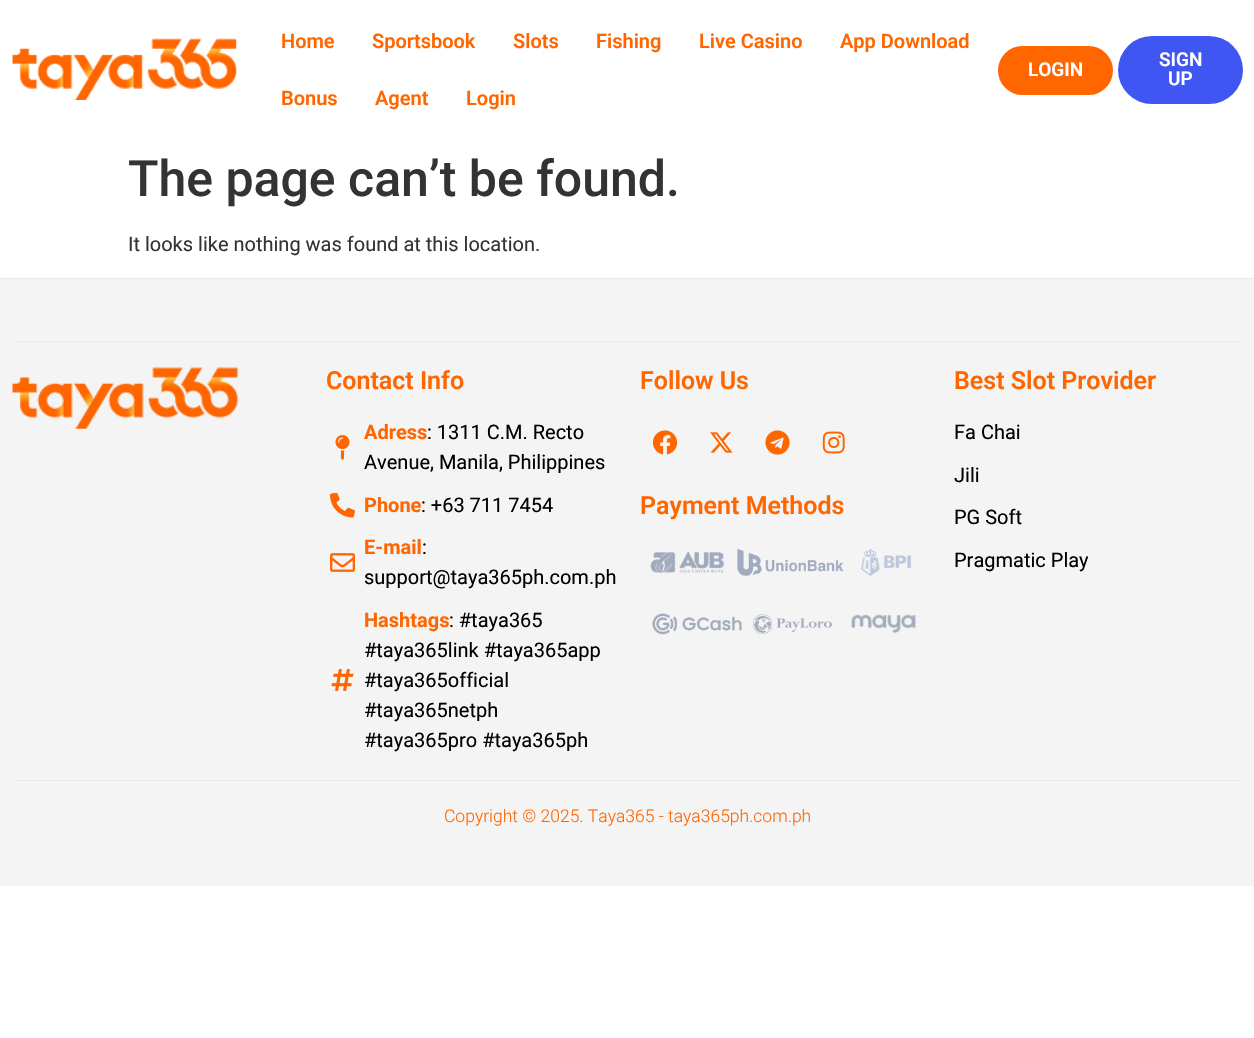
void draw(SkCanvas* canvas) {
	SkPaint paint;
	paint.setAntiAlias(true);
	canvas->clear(0xffffffff);
	canvas->drawImageRect(SkImages::DeferredFromEncodedData(SkData::MakeFromFileName("img1.png")), SkRect::MakeXYWH(12, 38, 225, 62), SkSamplingOptions());
	SkFont f1(fontMgr->matchFamilyStyle("Roboto", SkFontStyle(600, SkFontStyle::kNormal_Width, SkFontStyle::kUpright_Slant)), 20);
	f1.setSubpixel(true);
	paint.setColor(0xffff6600);
	canvas->drawString("Home", 281, 48, f1, paint);
	canvas->drawString("Sportsbook", 372, 48, f1, paint);
	canvas->drawString("Slots", 513, 48, f1, paint);
	canvas->drawString("Fishing", 596, 48, f1, paint);
	canvas->drawString("Live Casino", 699, 48, f1, paint);
	canvas->drawString("App Download", 840, 48, f1, paint);
	canvas->drawString("Bonus", 281, 105, f1, paint);
	canvas->drawString("Agent", 375, 105, f1, paint);
	canvas->drawString("Login", 466, 105, f1, paint);
	canvas->drawRoundRect(SkRect::MakeXYWH(998, 46, 115, 49), 24.5, 24.5, paint);
	SkFont f2(fontMgr->matchFamilyStyle("Roboto", SkFontStyle(600, SkFontStyle::kNormal_Width, SkFontStyle::kUpright_Slant)), 19);
	f2.setSubpixel(true);
	paint.setColor(0xffffffff);
	canvas->drawString("LOGIN", 1028, 76, f2, paint);
	paint.setColor(0xff4056f3);
	canvas->drawRoundRect(SkRect::MakeXYWH(1118, 36, 125, 68), 34, 34, paint);
	paint.setColor(0xffffffff);
	canvas->drawString("SIGN", 1159, 66, f2, paint);
	canvas->drawString("UP", 1168, 85, f2, paint);
	SkFont f3(fontMgr->matchFamilyStyle("Roboto", SkFontStyle(500, SkFontStyle::kNormal_Width, SkFontStyle::kUpright_Slant)), 50);
	f3.setSubpixel(true);
	paint.setColor(0xff333333);
	canvas->drawString("The page can’t be found.", 128, 196, f3, paint);
	SkFont f4(fontMgr->matchFamilyStyle("Roboto", SkFontStyle::Normal()), 20);
	f4.setSubpixel(true);
	canvas->drawString("It looks like nothing was found at this location.", 128, 251, f4, paint);
	paint.setColor(0xfff4f4f4);
	canvas->drawRect(SkRect::MakeXYWH(0, 279, 1254, 607), paint);
	paint.setColor(0xffeaeaea);
	canvas->drawRect(SkRect::MakeXYWH(0, 278, 1254, 1), paint);
	canvas->drawRect(SkRect::MakeXYWH(13, 341, 1230, 1), paint);
	canvas->drawRect(SkRect::MakeXYWH(13, 780, 1230, 1), paint);
	canvas->drawImageRect(SkImages::DeferredFromEncodedData(SkData::MakeFromFileName("img2.png")), SkRect::MakeXYWH(12, 367, 226, 62), SkSamplingOptions());
	SkFont f5(fontMgr->matchFamilyStyle("Roboto", SkFontStyle(600, SkFontStyle::kNormal_Width, SkFontStyle::kUpright_Slant)), 25);
	f5.setSubpixel(true);
	paint.setColor(0xffff6600);
	canvas->drawString("Contact Info", 326, 389, f5, paint);
	canvas->drawImageRect(SkImages::DeferredFromEncodedData(SkData::MakeFromFileName("img3.png")), SkRect::MakeXYWH(335, 435, 15, 25), SkSamplingOptions());
	SkFont f6(fontMgr->matchFamilyStyle("Roboto", SkFontStyle::Bold()), 20);
	f6.setSubpixel(true);
	canvas->drawString("Adress", 364, 439, f6, paint);
	paint.setColor(0xff000000);
	canvas->drawString(": 1311 C.M. Recto", 427, 439, f4, paint);
	canvas->drawString("Avenue, Manila, Philippines", 364, 469, f4, paint);
	canvas->drawImageRect(SkImages::DeferredFromEncodedData(SkData::MakeFromFileName("img4.png")), SkRect::MakeXYWH(330, 493, 25, 25), SkSamplingOptions());
	paint.setColor(0xffff6600);
	canvas->drawString("Phone", 364, 512, f6, paint);
	paint.setColor(0xff000000);
	canvas->drawString(": +63 711 7454", 421, 512, f4, paint);
	canvas->drawImageRect(SkImages::DeferredFromEncodedData(SkData::MakeFromFileName("img5.png")), SkRect::MakeXYWH(330, 553, 25, 19), SkSamplingOptions());
	paint.setColor(0xffff6600);
	canvas->drawString("E-mail", 364, 554, f6, paint);
	paint.setColor(0xff000000);
	canvas->drawString(":", 422, 554, f4, paint);
	canvas->drawString("support@taya365ph.com.ph", 364, 584, f4, paint);
	canvas->drawImageRect(SkImages::DeferredFromEncodedData(SkData::MakeFromFileName("img6.png")), SkRect::MakeXYWH(331, 669, 23, 22), SkSamplingOptions());
	paint.setColor(0xffff6600);
	canvas->drawString("Hashtags", 364, 627, f6, paint);
	paint.setColor(0xff000000);
	canvas->drawString(": #taya365", 449, 627, f4, paint);
	canvas->drawString("#taya365link #taya365app", 364, 657, f4, paint);
	canvas->drawString("#taya365official", 364, 687, f4, paint);
	canvas->drawString("#taya365netph", 364, 717, f4, paint);
	canvas->drawString("#taya365pro #taya365ph", 364, 747, f4, paint);
	paint.setColor(0xffff6600);
	canvas->drawString("Follow Us", 640, 389, f5, paint);
	canvas->drawImageRect(SkImages::DeferredFromEncodedData(SkData::MakeFromFileName("img7.png")), SkRect::MakeXYWH(653, 430, 25, 25), SkSamplingOptions());
	canvas->drawImageRect(SkImages::DeferredFromEncodedData(SkData::MakeFromFileName("img8.png")), SkRect::MakeXYWH(710, 432, 23, 21), SkSamplingOptions());
	canvas->drawImageRect(SkImages::DeferredFromEncodedData(SkData::MakeFromFileName("img9.png")), SkRect::MakeXYWH(765, 430, 25, 25), SkSamplingOptions());
	canvas->drawImageRect(SkImages::DeferredFromEncodedData(SkData::MakeFromFileName("img10.png")), SkRect::MakeXYWH(822, 431, 23, 23), SkSamplingOptions());
	canvas->drawString("Payment Methods", 640, 514, f5, paint);
	canvas->drawImageRect(SkImages::DeferredFromEncodedData(SkData::MakeFromFileName("img11.png")), SkRect::MakeXYWH(650, 548, 261, 28), SkSamplingOptions());
	canvas->drawImageRect(SkImages::DeferredFromEncodedData(SkData::MakeFromFileName("img12.png")), SkRect::MakeXYWH(652, 613, 264, 22), SkSamplingOptions());
	canvas->drawString("Best Slot Provider", 954, 389, f5, paint);
	paint.setColor(0xff000000);
	canvas->drawString("Fa Chai", 954, 439, f4, paint);
	canvas->drawString("Jili", 954, 482, f4, paint);
	canvas->drawString("PG Soft", 954, 524, f4, paint);
	canvas->drawString("Pragmatic Play", 954, 567, f4, paint);
	SkFont f7(fontMgr->matchFamilyStyle("Roboto", SkFontStyle(300, SkFontStyle::kNormal_Width, SkFontStyle::kUpright_Slant)), 17.5);
	f7.setSubpixel(true);
	paint.setColor(0xffff6600);
	canvas->drawString("Copyright © 2025. Taya365 - taya365ph.com.ph", 444, 822, f7, paint);
}
